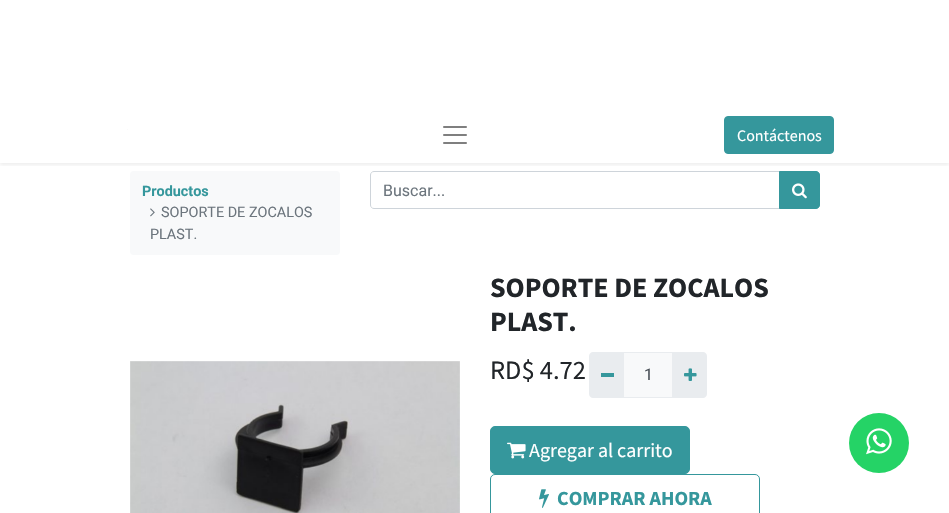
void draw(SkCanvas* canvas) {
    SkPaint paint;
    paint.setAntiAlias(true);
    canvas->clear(0xFFFFFFFF);
    paint.setColor(0xFFF8F9FA);
    canvas->drawRoundRect(SkRect::MakeXYWH(130, 171, 210, 84), 4, 4, paint);
    paint.setStyle(SkPaint::kStroke_Style);
    paint.setStrokeWidth(1);
    paint.setColor(0xFFCED4DA);
    canvas->drawPath(SkPathBuilder().moveTo(374, 171.5f).lineTo(779.5f, 171.5f).lineTo(779.5f, 208.5f).lineTo(374, 208.5f).cubicTo(372, 208.5f, 370.5f, 207, 370.5f, 205).lineTo(370.5f, 175).cubicTo(370.5f, 173, 372, 171.5f, 374, 171.5f).close().detach(), paint);
    paint.setStyle(SkPaint::kFill_Style);
    paint.setColor(0xFF35979C);
    canvas->drawPath(SkPathBuilder().moveTo(779.5f, 171.5f).lineTo(816, 171.5f).cubicTo(818, 171.5f, 819.5f, 173, 819.5f, 175).lineTo(819.5f, 205).cubicTo(819.5f, 207, 818, 208.5f, 816, 208.5f).lineTo(779.5f, 208.5f).close().detach(), paint);
    paint.setStyle(SkPaint::kStroke_Style);
    canvas->drawPath(SkPathBuilder().moveTo(779.5f, 171.5f).lineTo(816, 171.5f).cubicTo(818, 171.5f, 819.5f, 173, 819.5f, 175).lineTo(819.5f, 205).cubicTo(819.5f, 207, 818, 208.5f, 816, 208.5f).lineTo(779.5f, 208.5f).close().detach(), paint);
    canvas->save();
    canvas->clipRect(SkRect::MakeXYWH(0, 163, 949, 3));
    paint.setStyle(SkPaint::kFill_Style);
    paint.setColor(0x12000000);
    paint.setMaskFilter(SkMaskFilter::MakeBlur(kNormal_SkBlurStyle, 2));
    canvas->drawRect(SkRect::MakeXYWH(0, 109, 949, 56), paint);
    paint.setMaskFilter(nullptr);
    canvas->restore();
    paint.setColor(0xFFFAFAFA);
    canvas->drawRect(SkRect::MakeXYWH(127, 129, 1, 1), paint);
    canvas->drawImageRect(SkImages::DeferredFromEncodedData(SkData::MakeFromFileName("img1.png")), SkRect::MakeXYWH(443, 126, 24, 18), SkSamplingOptions());
    paint.setColor(0xFF35979C);
    canvas->drawRoundRect(SkRect::MakeXYWH(724.5f, 116.5f, 109, 37), 3.5f, 3.5f, paint);
    paint.setStyle(SkPaint::kStroke_Style);
    canvas->drawRoundRect(SkRect::MakeXYWH(724.5f, 116.5f, 109, 37), 3.5f, 3.5f, paint);
    SkFont font1(fontMgr->matchFamilyStyle("Source Sans Pro", SkFontStyle::Normal()), 16);
    font1.setSubpixel(true);
    paint.setStyle(SkPaint::kFill_Style);
    paint.setColor(0xFFFFFFFF);
    canvas->drawString("Contáctenos", 737, 141, font1, paint);
    SkFont font2(fontMgr->matchFamilyStyle("Roboto", SkFontStyle::Bold()), 14.4f);
    font2.setSubpixel(true);
    paint.setColor(0xFF35979C);
    canvas->drawString("Productos", 142, 196, font2, paint);
    canvas->drawImageRect(SkImages::DeferredFromEncodedData(SkData::MakeFromFileName("img2.png")), SkRect::MakeXYWH(150, 208, 5, 9), SkSamplingOptions());
    SkFont font3(fontMgr->matchFamilyStyle("Roboto", SkFontStyle::Normal()), 14.4f);
    font3.setSubpixel(true);
    paint.setColor(0xFF6C757D);
    canvas->drawString("SOPORTE DE ZOCALOS", 161, 217, font3, paint);
    canvas->drawString("PLAST.", 150, 239, font3, paint);
    SkFont font4(fontMgr->matchFamilyStyle("Roboto", SkFontStyle::Normal()), 16);
    font4.setSubpixel(true);
    canvas->drawString("Buscar...", 383, 196, font4, paint);
    canvas->drawImageRect(SkImages::DeferredFromEncodedData(SkData::MakeFromFileName("img3.png")), SkRect::MakeXYWH(792, 183, 15, 16), SkSamplingOptions());
    canvas->drawImageRect(SkImages::DeferredFromEncodedData(SkData::MakeFromFileName("img4.png")), SkRect::MakeXYWH(130, 361, 330, 152), SkSamplingOptions());
    SkFont font5(fontMgr->matchFamilyStyle("Source Sans Pro", SkFontStyle::Bold()), 28);
    font5.setSubpixel(true);
    paint.setColor(0xFF212529);
    canvas->drawString("SOPORTE DE ZOCALOS", 490, 297, font5, paint);
    canvas->drawString("PLAST.", 490, 331, font5, paint);
    SkFont font6(fontMgr->matchFamilyStyle("Source Sans Pro", SkFontStyle::Normal()), 26.5f);
    font6.setSubpixel(true);
    canvas->drawString("RD$ 4.72", 490, 379, font6, paint);
    paint.setColor(0xFFF8F9FA);
    canvas->drawRect(SkRect::MakeXYWH(623.5f, 352.5f, 49, 45), paint);
    paint.setStyle(SkPaint::kStroke_Style);
    paint.setColor(0xFFE9ECEF);
    canvas->drawRect(SkRect::MakeXYWH(623.5f, 352.5f, 49, 45), paint);
    paint.setStyle(SkPaint::kFill_Style);
    canvas->drawPath(SkPathBuilder().moveTo(593, 352).lineTo(624, 352).lineTo(624, 398).lineTo(593, 398).cubicTo(591, 398, 589, 396, 589, 394).lineTo(589, 356).cubicTo(589, 354, 591, 352, 593, 352).close().detach(), paint);
    paint.setColor(0xFF35979C);
    canvas->drawRect(SkRect::MakeXYWH(601, 373, 13, 4), paint);
    paint.setColor(0xFF495057);
    canvas->drawString("1", 644, 380, font4, paint);
    paint.setColor(0xFFE9ECEF);
    canvas->drawPath(SkPathBuilder().moveTo(672, 352).lineTo(703, 352).cubicTo(705, 352, 707, 354, 707, 356).lineTo(707, 394).cubicTo(707, 396, 705, 398, 703, 398).lineTo(672, 398).close().detach(), paint);
    canvas->drawImageRect(SkImages::DeferredFromEncodedData(SkData::MakeFromFileName("img5.png")), SkRect::MakeXYWH(684, 368, 13, 13), SkSamplingOptions());
    paint.setColor(0xFF35979C);
    canvas->drawRoundRect(SkRect::MakeXYWH(490.5f, 426.5f, 199, 47), 4.5f, 4.5f, paint);
    paint.setStyle(SkPaint::kStroke_Style);
    canvas->drawRoundRect(SkRect::MakeXYWH(490.5f, 426.5f, 199, 47), 4.5f, 4.5f, paint);
    canvas->drawImageRect(SkImages::DeferredFromEncodedData(SkData::MakeFromFileName("img6.png")), SkRect::MakeXYWH(507, 442, 19, 17), SkSamplingOptions());
    SkFont font7(fontMgr->matchFamilyStyle("Source Sans Pro", SkFontStyle::Normal()), 20);
    font7.setSubpixel(true);
    paint.setStyle(SkPaint::kFill_Style);
    paint.setColor(0xFFFFFFFF);
    canvas->drawString("Agregar al carrito", 529, 457, font7, paint);
    paint.setStyle(SkPaint::kStroke_Style);
    paint.setColor(0xFF35979C);
    canvas->drawRoundRect(SkRect::MakeXYWH(490.5f, 474.5f, 269, 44), 4.5f, 4.5f, paint);
    canvas->drawImageRect(SkImages::DeferredFromEncodedData(SkData::MakeFromFileName("img7.png")), SkRect::MakeXYWH(539, 489, 10, 19), SkSamplingOptions());
    SkFont font8(fontMgr->matchFamilyStyle("Source Sans Pro", SkFontStyle::Bold()), 20);
    font8.setSubpixel(true);
    paint.setStyle(SkPaint::kFill_Style);
    canvas->drawString("COMPRAR AHORA", 557, 505, font8, paint);
    paint.setColor(0xFF25D366);
    canvas->drawCircle(879, 443, 30, paint);
    canvas->drawImageRect(SkImages::DeferredFromEncodedData(SkData::MakeFromFileName("img8.png")), SkRect::MakeXYWH(866, 428, 26, 27), SkSamplingOptions());
}
